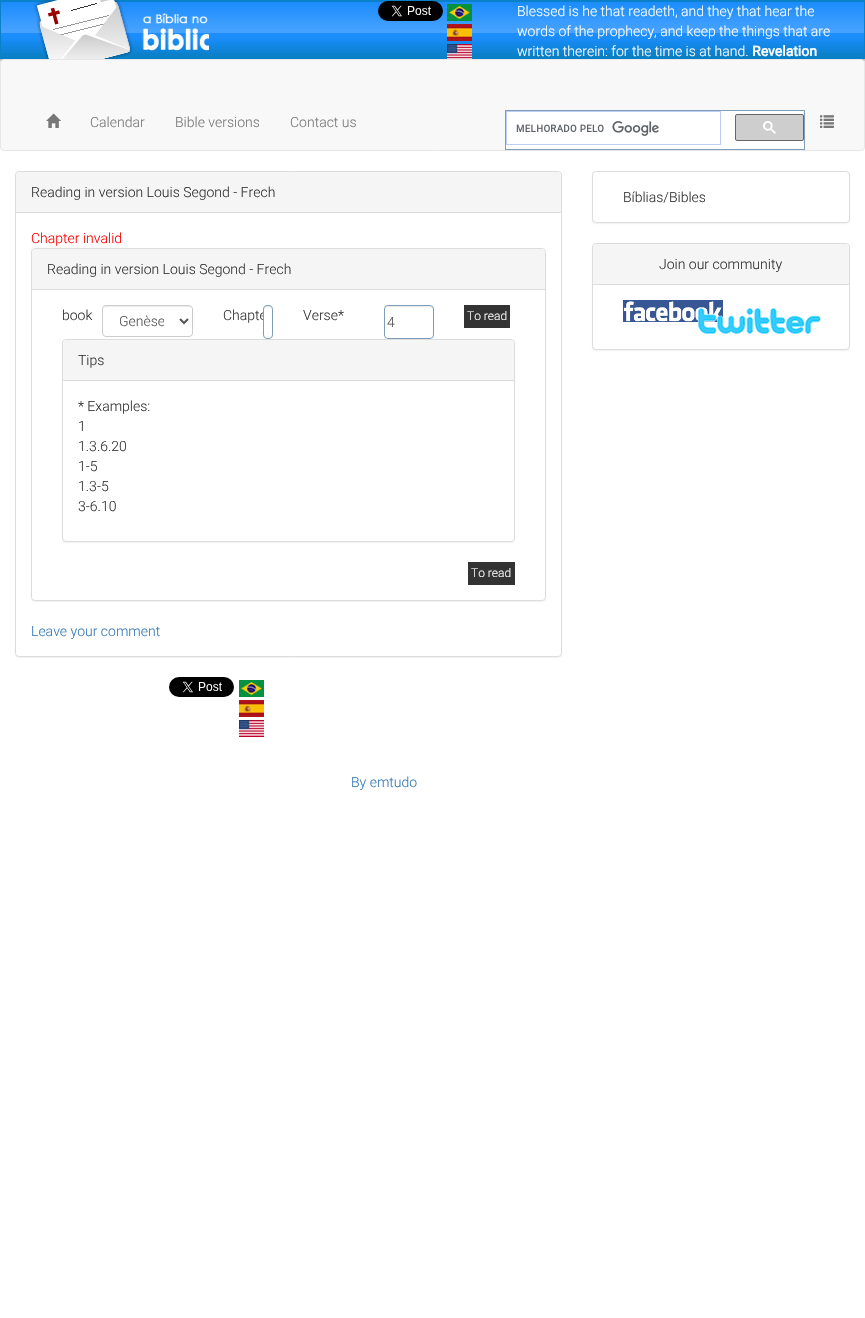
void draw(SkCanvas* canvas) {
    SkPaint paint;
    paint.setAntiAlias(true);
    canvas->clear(0xFFFFFFFF);
    paint.setColor(0xFF999999);
    paint.setMaskFilter(SkMaskFilter::MakeBlur(kNormal_SkBlurStyle, 1.5f));
    canvas->drawRect(SkRect::MakeXYWH(0, 3, 865, 59), paint);
    paint.setMaskFilter(nullptr);
    canvas->drawImageRect(SkImages::DeferredFromEncodedData(SkData::MakeFromFileName("img1.png")), SkRect::MakeXYWH(1, 1, 863, 57), SkSamplingOptions());
    paint.setStyle(SkPaint::kStroke_Style);
    paint.setStrokeWidth(1);
    paint.setColor(0xFF0A80C9);
    canvas->drawRect(SkRect::MakeXYWH(0.5f, 0.5f, 864, 58), paint);
    canvas->drawImageRect(SkImages::DeferredFromEncodedData(SkData::MakeFromFileName("img2.png")), SkRect::MakeXYWH(34, 0, 175, 59), SkSamplingOptions());
    canvas->drawImageRect(SkImages::DeferredFromEncodedData(SkData::MakeFromFileName("img3.png")), SkRect::MakeXYWH(378, 1, 65, 20), SkSamplingOptions());
    canvas->drawImageRect(SkImages::DeferredFromEncodedData(SkData::MakeFromFileName("img4.png")), SkRect::MakeXYWH(447, 4, 25, 17), SkSamplingOptions());
    canvas->drawImageRect(SkImages::DeferredFromEncodedData(SkData::MakeFromFileName("img5.png")), SkRect::MakeXYWH(447, 24, 25, 17), SkSamplingOptions());
    canvas->drawImageRect(SkImages::DeferredFromEncodedData(SkData::MakeFromFileName("img6.png")), SkRect::MakeXYWH(447, 44, 25, 15), SkSamplingOptions());
    SkFont font1(fontMgr->matchFamilyStyle("Roboto", SkFontStyle(300, SkFontStyle::kNormal_Width, SkFontStyle::kUpright_Slant)), 14);
    font1.setSubpixel(true);
    paint.setStyle(SkPaint::kFill_Style);
    paint.setColor(0xFFFFFFFF);
    canvas->drawString("Blessed is he that readeth, and they that hear the", 517, 16, font1, paint);
    canvas->drawString("words of the prophecy, and keep the things that are", 517, 36, font1, paint);
    canvas->drawString("written therein: for the time is at hand.", 517, 56, font1, paint);
    SkFont font2(fontMgr->matchFamilyStyle("Roboto", SkFontStyle::Bold()), 14);
    font2.setSubpixel(true);
    canvas->drawString("Revelation", 752, 56, font2, paint);
    paint.setColor(0xFFF8F8F8);
    canvas->drawRoundRect(SkRect::MakeXYWH(0.5f, 59.5f, 864, 91), 3.5f, 3.5f, paint);
    paint.setStyle(SkPaint::kStroke_Style);
    paint.setColor(0xFFE7E7E7);
    canvas->drawRoundRect(SkRect::MakeXYWH(0.5f, 59.5f, 864, 91), 3.5f, 3.5f, paint);
    canvas->drawImageRect(SkImages::DeferredFromEncodedData(SkData::MakeFromFileName("img7.png")), SkRect::MakeXYWH(46, 113, 15, 15), SkSamplingOptions());
    paint.setStyle(SkPaint::kFill_Style);
    paint.setColor(0xFF777777);
    canvas->drawString("Calendar", 90, 127, font1, paint);
    canvas->drawString("Bible versions", 175, 127, font1, paint);
    canvas->drawString("Contact us", 290, 127, font1, paint);
    paint.setColor(0xFFFFFFFF);
    canvas->drawRect(SkRect::MakeXYWH(505.5f, 110.5f, 299, 39), paint);
    paint.setStyle(SkPaint::kStroke_Style);
    paint.setColor(0xFF7E9DB9);
    canvas->drawRect(SkRect::MakeXYWH(505.5f, 110.5f, 299, 39), paint);
    paint.setColor(0xFFBCCDF0);
    canvas->drawRect(SkRect::MakeXYWH(506.5f, 111.5f, 214, 33), paint);
    canvas->drawImageRect(SkImages::DeferredFromEncodedData(SkData::MakeFromFileName("img8.png")), SkRect::MakeXYWH(516, 121, 143, 15), SkSamplingOptions());
    paint.setStyle(SkPaint::kFill_Style);
    paint.setColor(0xFFCECECE);
    canvas->drawRoundRect(SkRect::MakeXYWH(735.5f, 114.5f, 68, 26), 1.5f, 1.5f, paint);
    paint.setStyle(SkPaint::kStroke_Style);
    paint.setColor(0xFF666666);
    canvas->drawRoundRect(SkRect::MakeXYWH(735.5f, 114.5f, 68, 26), 1.5f, 1.5f, paint);
    canvas->drawImageRect(SkImages::DeferredFromEncodedData(SkData::MakeFromFileName("img9.png")), SkRect::MakeXYWH(763, 121, 13, 13), SkSamplingOptions());
    canvas->drawImageRect(SkImages::DeferredFromEncodedData(SkData::MakeFromFileName("img10.png")), SkRect::MakeXYWH(820, 115, 14, 13), SkSamplingOptions());
    paint.setStyle(SkPaint::kFill_Style);
    paint.setColor(0x0D000000);
    paint.setMaskFilter(SkMaskFilter::MakeBlur(kNormal_SkBlurStyle, 0.5f));
    canvas->drawRoundRect(SkRect::MakeXYWH(15, 172, 547, 486), 4, 4, paint);
    paint.setMaskFilter(nullptr);
    paint.setColor(0xFFFFFFFF);
    canvas->drawRoundRect(SkRect::MakeXYWH(15.5f, 171.5f, 546, 485), 3.5f, 3.5f, paint);
    paint.setStyle(SkPaint::kStroke_Style);
    paint.setColor(0xFFDDDDDD);
    canvas->drawRoundRect(SkRect::MakeXYWH(15.5f, 171.5f, 546, 485), 3.5f, 3.5f, paint);
    paint.setStyle(SkPaint::kFill_Style);
    paint.setColor(0xFFF5F5F5);
    canvas->drawPath(SkPathBuilder().moveTo(19, 172).lineTo(558, 172).cubicTo(559.5f, 172, 561, 173.5f, 561, 175).lineTo(561, 213).lineTo(16, 213).lineTo(16, 175).cubicTo(16, 173.5f, 17.5f, 172, 19, 172).close().detach(), paint);
    paint.setColor(0xFFDDDDDD);
    canvas->drawRect(SkRect::MakeXYWH(16, 212, 545, 1), paint);
    paint.setColor(0xFF333333);
    canvas->drawString("Reading in version Louis Segond - Frech", 31, 197, font1, paint);
    paint.setColor(0xFFFF0000);
    canvas->drawString("Chapter invalid", 31, 243, font1, paint);
    paint.setColor(0x0D000000);
    paint.setMaskFilter(SkMaskFilter::MakeBlur(kNormal_SkBlurStyle, 0.5f));
    canvas->drawRoundRect(SkRect::MakeXYWH(31, 249, 515, 353), 4, 4, paint);
    paint.setMaskFilter(nullptr);
    paint.setColor(0xFFFFFFFF);
    canvas->drawRoundRect(SkRect::MakeXYWH(31.5f, 248.5f, 514, 352), 3.5f, 3.5f, paint);
    paint.setStyle(SkPaint::kStroke_Style);
    paint.setColor(0xFFDDDDDD);
    canvas->drawRoundRect(SkRect::MakeXYWH(31.5f, 248.5f, 514, 352), 3.5f, 3.5f, paint);
    paint.setStyle(SkPaint::kFill_Style);
    paint.setColor(0xFFF5F5F5);
    canvas->drawPath(SkPathBuilder().moveTo(35, 249).lineTo(542, 249).cubicTo(543.5f, 249, 545, 250.5f, 545, 252).lineTo(545, 290).lineTo(32, 290).lineTo(32, 252).cubicTo(32, 250.5f, 33.5f, 249, 35, 249).close().detach(), paint);
    paint.setColor(0xFFDDDDDD);
    canvas->drawRect(SkRect::MakeXYWH(32, 289, 513, 1), paint);
    paint.setColor(0xFF333333);
    canvas->drawString("Reading in version Louis Segond - Frech", 47, 274, font1, paint);
    canvas->drawString("book", 62, 320, font1, paint);
    paint.setColor(0xFFECECEC);
    canvas->drawPath(SkPathBuilder().moveTo(106, 307).lineTo(189, 307).cubicTo(191, 307, 192, 308, 192, 310).cubicTo(192, 302, 179, 306, 175, 306).lineTo(120, 306).cubicTo(116, 306, 103, 302, 103, 310).cubicTo(103, 308, 104, 307, 106, 307).close().detach(), paint);
    paint.setStyle(SkPaint::kStroke_Style);
    paint.setColor(0xFFCCCCCC);
    canvas->drawRoundRect(SkRect::MakeXYWH(102.5f, 305.5f, 90, 31), 3.5f, 3.5f, paint);
    paint.setStrokeWidth(2);
    paint.setColor(0xFF555555);
    canvas->drawPath(SkPathBuilder().moveTo(180, 319).lineTo(184, 323).lineTo(188, 319).detach(), paint);
    canvas->save();
    canvas->clipRect(SkRect::MakeXYWH(119, 312, 45, 18));
    paint.setStyle(SkPaint::kFill_Style);
    canvas->drawString("Genèse", 119, 326, font1, paint);
    canvas->restore();
    paint.setColor(0xFF333333);
    canvas->drawString("Chapte", 223, 320, font1, paint);
    paint.setColor(0xFFFFFFFF);
    canvas->drawRoundRect(SkRect::MakeXYWH(263, 305, 10, 34), 4, 4, paint);
    paint.setColor(0xFFECECEC);
    canvas->drawPath(SkPathBuilder().moveTo(267, 307).cubicTo(269.5f, 307, 272, 307, 272, 310).cubicTo(272, 307, 271, 306, 268, 306).cubicTo(265, 306, 264, 307, 264, 310).cubicTo(264, 308, 265, 307, 267, 307).close().detach(), paint);
    paint.setStyle(SkPaint::kStroke_Style);
    paint.setStrokeWidth(1);
    paint.setColor(0xFF7E9DB9);
    canvas->drawRoundRect(SkRect::MakeXYWH(263.5f, 305.5f, 9, 33), 3.5f, 3.5f, paint);
    paint.setStyle(SkPaint::kFill_Style);
    paint.setColor(0xFF333333);
    canvas->drawString("Verse*", 303, 320, font1, paint);
    paint.setColor(0xFFECECEC);
    canvas->drawPath(SkPathBuilder().moveTo(388, 307).lineTo(430, 307).cubicTo(432, 307, 433, 308, 433, 310).cubicTo(433, 304, 427, 306, 423, 306).lineTo(395, 306).cubicTo(391, 306, 385, 304, 385, 310).cubicTo(385, 308, 386, 307, 388, 307).close().detach(), paint);
    paint.setStyle(SkPaint::kStroke_Style);
    paint.setColor(0xFF7E9DB9);
    canvas->drawRoundRect(SkRect::MakeXYWH(384.5f, 305.5f, 49, 33), 3.5f, 3.5f, paint);
    paint.setStyle(SkPaint::kFill_Style);
    paint.setColor(0xFF555555);
    canvas->drawString("4", 387, 327, font1, paint);
    paint.setColor(0xFF333333);
    canvas->drawRect(SkRect::MakeXYWH(464, 305, 46, 23), paint);
    SkFont font3(fontMgr->matchFamilyStyle("Roboto", SkFontStyle(300, SkFontStyle::kNormal_Width, SkFontStyle::kUpright_Slant)), 12);
    font3.setSubpixel(true);
    paint.setColor(0xFFFFFFFF);
    canvas->drawString("To read", 467, 320, font3, paint);
    paint.setColor(0x0D000000);
    paint.setMaskFilter(SkMaskFilter::MakeBlur(kNormal_SkBlurStyle, 0.5f));
    canvas->drawRoundRect(SkRect::MakeXYWH(62, 340, 453, 203), 4, 4, paint);
    paint.setMaskFilter(nullptr);
    paint.setColor(0xFFFFFFFF);
    canvas->drawRoundRect(SkRect::MakeXYWH(62.5f, 339.5f, 452, 202), 3.5f, 3.5f, paint);
    paint.setStyle(SkPaint::kStroke_Style);
    paint.setColor(0xFFDDDDDD);
    canvas->drawRoundRect(SkRect::MakeXYWH(62.5f, 339.5f, 452, 202), 3.5f, 3.5f, paint);
    paint.setStyle(SkPaint::kFill_Style);
    paint.setColor(0xFFF5F5F5);
    canvas->drawPath(SkPathBuilder().moveTo(66, 340).lineTo(511, 340).cubicTo(512.5f, 340, 514, 341.5f, 514, 343).lineTo(514, 381).lineTo(63, 381).lineTo(63, 343).cubicTo(63, 341.5f, 64.5f, 340, 66, 340).close().detach(), paint);
    paint.setColor(0xFFDDDDDD);
    canvas->drawRect(SkRect::MakeXYWH(63, 380, 451, 1), paint);
    paint.setColor(0xFF333333);
    canvas->drawString("Tips", 78, 365, font1, paint);
    canvas->drawString("* Examples:", 78, 411, font1, paint);
    canvas->drawString("1", 78, 431, font1, paint);
    canvas->drawString("1.3.6.20", 78, 451, font1, paint);
    canvas->drawString("1-5", 78, 471, font1, paint);
    canvas->drawString("1.3-5", 78, 491, font1, paint);
    canvas->drawString("3-6.10", 78, 511, font1, paint);
    canvas->drawRect(SkRect::MakeXYWH(468, 562, 47, 23), paint);
    paint.setColor(0xFFFFFFFF);
    canvas->drawString("To read", 471, 577, font3, paint);
    paint.setColor(0xFF337AB7);
    canvas->drawString("Leave your comment", 31, 636, font1, paint);
    paint.setColor(0x0D000000);
    paint.setMaskFilter(SkMaskFilter::MakeBlur(kNormal_SkBlurStyle, 0.5f));
    canvas->drawRoundRect(SkRect::MakeXYWH(592, 172, 258, 52), 4, 4, paint);
    paint.setMaskFilter(nullptr);
    paint.setColor(0xFFFFFFFF);
    canvas->drawRoundRect(SkRect::MakeXYWH(592.5f, 171.5f, 257, 51), 3.5f, 3.5f, paint);
    paint.setStyle(SkPaint::kStroke_Style);
    paint.setColor(0xFFDDDDDD);
    canvas->drawRoundRect(SkRect::MakeXYWH(592.5f, 171.5f, 257, 51), 3.5f, 3.5f, paint);
    paint.setStyle(SkPaint::kFill_Style);
    paint.setColor(0xFF333333);
    canvas->drawString("Bíblias/Bibles", 623, 202, font1, paint);
    paint.setColor(0x0D000000);
    paint.setMaskFilter(SkMaskFilter::MakeBlur(kNormal_SkBlurStyle, 0.5f));
    canvas->drawRoundRect(SkRect::MakeXYWH(592, 244, 258, 107), 4, 4, paint);
    paint.setMaskFilter(nullptr);
    paint.setColor(0xFFFFFFFF);
    canvas->drawRoundRect(SkRect::MakeXYWH(592.5f, 243.5f, 257, 106), 3.5f, 3.5f, paint);
    paint.setStyle(SkPaint::kStroke_Style);
    paint.setColor(0xFFDDDDDD);
    canvas->drawRoundRect(SkRect::MakeXYWH(592.5f, 243.5f, 257, 106), 3.5f, 3.5f, paint);
    paint.setStyle(SkPaint::kFill_Style);
    paint.setColor(0xFFF5F5F5);
    canvas->drawPath(SkPathBuilder().moveTo(596, 244).lineTo(846, 244).cubicTo(847.5f, 244, 849, 245.5f, 849, 247).lineTo(849, 285).lineTo(593, 285).lineTo(593, 247).cubicTo(593, 245.5f, 594.5f, 244, 596, 244).close().detach(), paint);
    paint.setColor(0xFFDDDDDD);
    canvas->drawRect(SkRect::MakeXYWH(593, 284, 256, 1), paint);
    paint.setColor(0xFF333333);
    canvas->drawString("Join our community", 659, 269, font1, paint);
    canvas->drawImageRect(SkImages::DeferredFromEncodedData(SkData::MakeFromFileName("img11.png")), SkRect::MakeXYWH(623, 300, 100, 22), SkSamplingOptions());
    canvas->drawImageRect(SkImages::DeferredFromEncodedData(SkData::MakeFromFileName("img12.png")), SkRect::MakeXYWH(698, 308, 123, 26), SkSamplingOptions());
    canvas->drawImageRect(SkImages::DeferredFromEncodedData(SkData::MakeFromFileName("img13.png")), SkRect::MakeXYWH(169, 677, 65, 20), SkSamplingOptions());
    canvas->drawImageRect(SkImages::DeferredFromEncodedData(SkData::MakeFromFileName("img4.png")), SkRect::MakeXYWH(239, 680, 25, 17), SkSamplingOptions());
    canvas->drawImageRect(SkImages::DeferredFromEncodedData(SkData::MakeFromFileName("img5.png")), SkRect::MakeXYWH(239, 700, 25, 17), SkSamplingOptions());
    canvas->drawImageRect(SkImages::DeferredFromEncodedData(SkData::MakeFromFileName("img14.png")), SkRect::MakeXYWH(239, 720, 25, 17), SkSamplingOptions());
    paint.setColor(0xFF337AB7);
    canvas->drawString("By emtudo", 351, 787, font1, paint);
}
